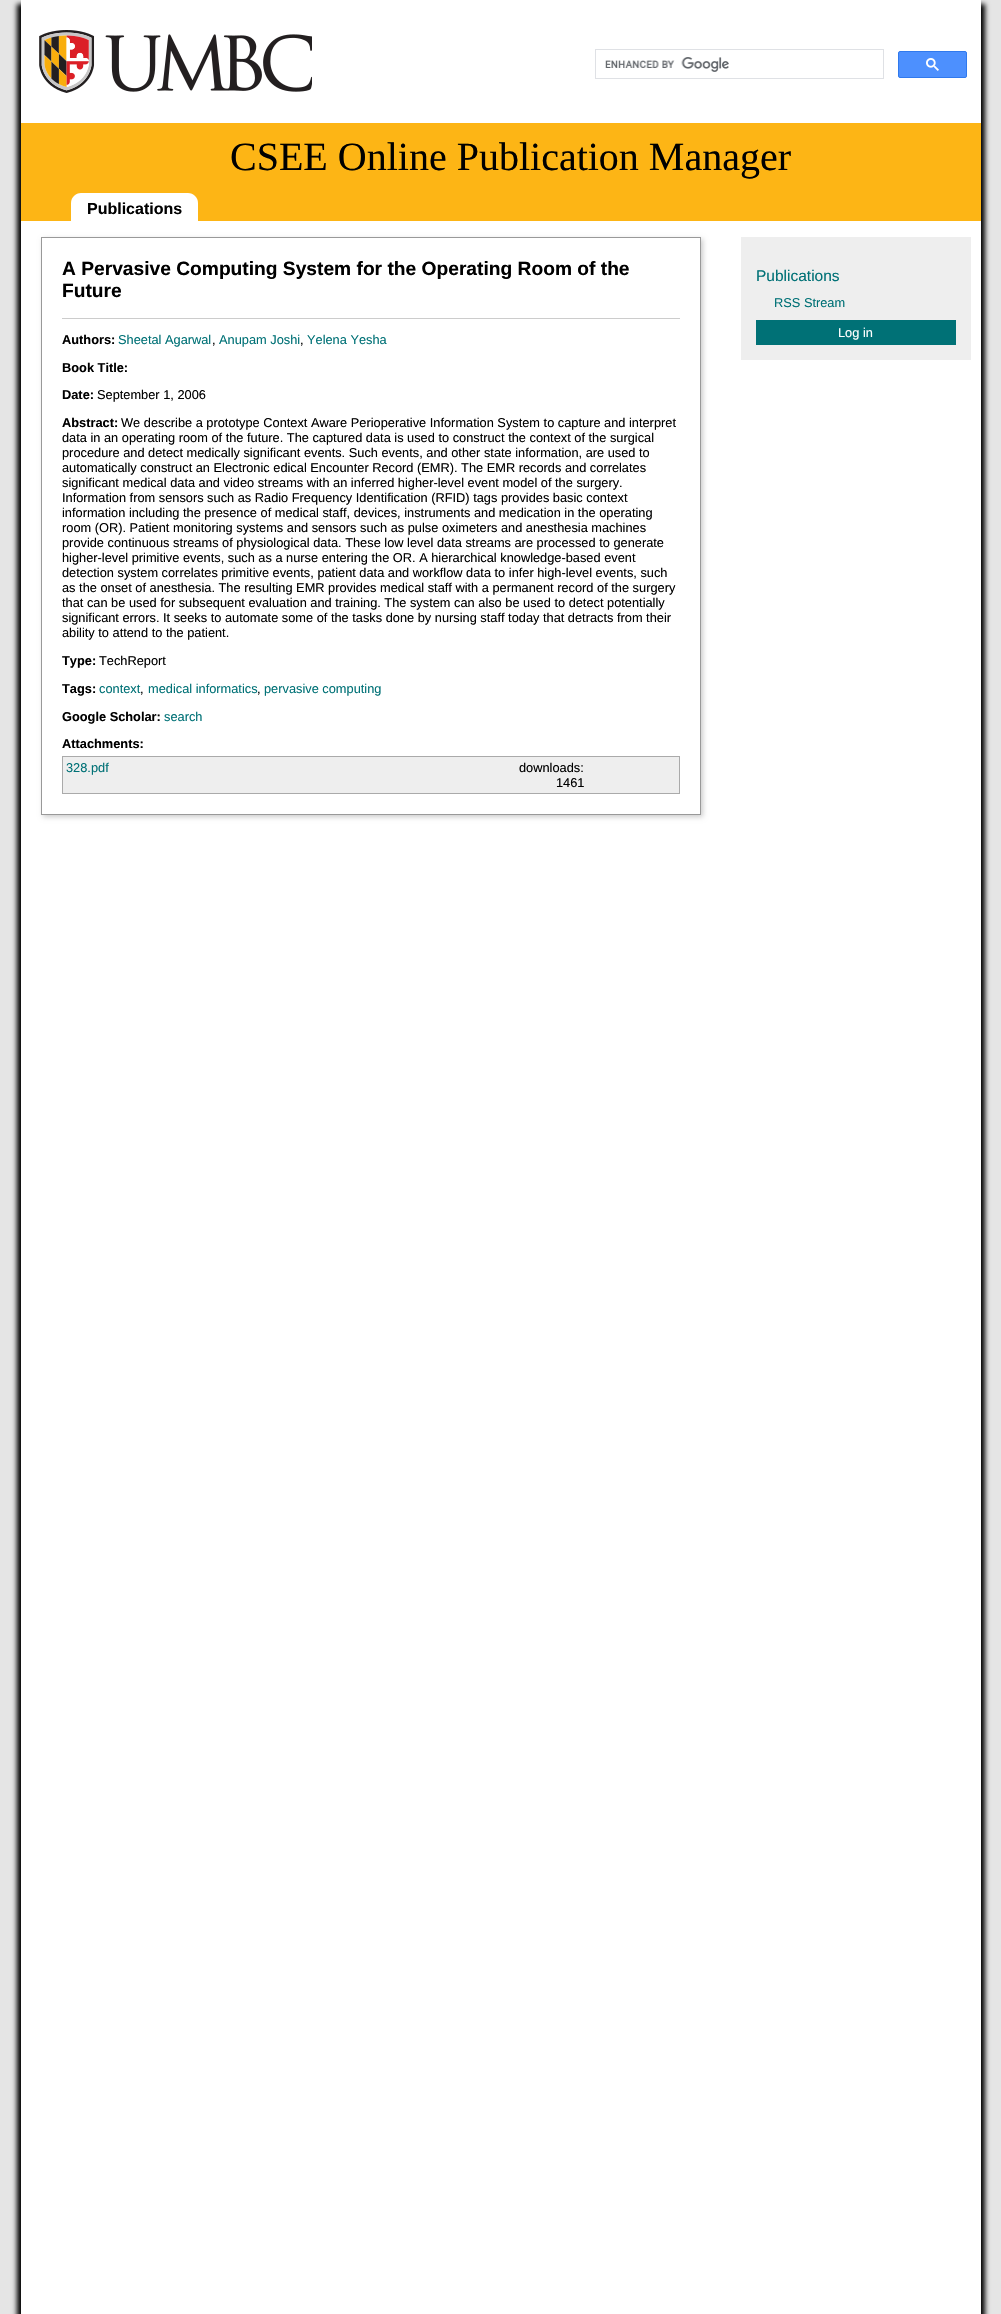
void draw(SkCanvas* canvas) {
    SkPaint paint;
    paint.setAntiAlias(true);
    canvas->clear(0xFFE5E5E5);
    paint.setColor(0xFF000000);
    paint.setMaskFilter(SkMaskFilter::MakeBlur(kNormal_SkBlurStyle, 2.5f));
    canvas->drawRect(SkRect::MakeXYWH(25, 4, 960, 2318), paint);
    paint.setMaskFilter(nullptr);
    paint.setMaskFilter(SkMaskFilter::MakeBlur(kNormal_SkBlurStyle, 2.5f));
    canvas->drawRect(SkRect::MakeXYWH(17, 4, 960, 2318), paint);
    paint.setMaskFilter(nullptr);
    paint.setColor(0xFFFFFFFF);
    canvas->drawRect(SkRect::MakeXYWH(21, 0, 960, 2314), paint);
    canvas->drawImageRect(SkImages::DeferredFromEncodedData(SkData::MakeFromFileName("img1.png")), SkRect::MakeXYWH(39, 30, 273, 63), SkSamplingOptions());
    paint.setStyle(SkPaint::kStroke_Style);
    paint.setStrokeWidth(1);
    paint.setColor(0xFFDFE1E5);
    canvas->drawRect(SkRect::MakeXYWH(595.5f, 49.5f, 288, 29), paint);
    canvas->drawImageRect(SkImages::DeferredFromEncodedData(SkData::MakeFromFileName("img2.png")), SkRect::MakeXYWH(605, 57, 124, 15), SkSamplingOptions());
    paint.setStyle(SkPaint::kFill_Style);
    paint.setColor(0xFF4D90FE);
    canvas->drawRoundRect(SkRect::MakeXYWH(898.5f, 51.5f, 68, 26), 1.5f, 1.5f, paint);
    paint.setStyle(SkPaint::kStroke_Style);
    paint.setColor(0xFF3079ED);
    canvas->drawRoundRect(SkRect::MakeXYWH(898.5f, 51.5f, 68, 26), 1.5f, 1.5f, paint);
    canvas->drawImageRect(SkImages::DeferredFromEncodedData(SkData::MakeFromFileName("img3.png")), SkRect::MakeXYWH(926, 58, 13, 13), SkSamplingOptions());
    paint.setStyle(SkPaint::kFill_Style);
    paint.setColor(0xFFFDB515);
    canvas->drawRect(SkRect::MakeXYWH(21, 123, 960, 98), paint);
    SkFont font1(fontMgr->matchFamilyStyle("Liberation Serif", SkFontStyle::Normal()), 40);
    font1.setSubpixel(true);
    paint.setColor(0xFF000000);
    canvas->drawString("CSEE Online Publication Manager", 230, 170, font1, paint);
    paint.setColor(0xFFFFFFFF);
    canvas->drawPath(SkPathBuilder().moveTo(81, 193).lineTo(188, 193).cubicTo(193.5f, 193, 198, 197.5f, 198, 203).lineTo(198, 221).lineTo(71, 221).lineTo(71, 203).cubicTo(71, 197.5f, 75.5f, 193, 81, 193).close().detach(), paint);
    SkFont font2(fontMgr->matchFamilyStyle("Liberation Sans", SkFontStyle::Bold()), 16);
    font2.setSubpixel(true);
    paint.setColor(0xFF000000);
    canvas->drawString("Publications", 87, 214, font2, paint);
    canvas->save();
    canvas->clipPath(SkPathBuilder(SkPathFillType::kEvenOdd).moveTo(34, 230).lineTo(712, 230).lineTo(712, 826).lineTo(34, 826).close().moveTo(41, 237).lineTo(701, 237).lineTo(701, 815).lineTo(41, 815).close().detach(), true);
    paint.setColor(0xFFCCCCCC);
    paint.setMaskFilter(SkMaskFilter::MakeBlur(kNormal_SkBlurStyle, 2.5f));
    canvas->drawRect(SkRect::MakeXYWH(43, 239, 660, 578), paint);
    paint.setMaskFilter(nullptr);
    canvas->restore();
    paint.setStyle(SkPaint::kStroke_Style);
    paint.setColor(0xFF999999);
    canvas->drawRect(SkRect::MakeXYWH(41.5f, 237.5f, 659, 577), paint);
    paint.setStyle(SkPaint::kFill_Style);
    paint.setColor(0xFFCCCCCC);
    canvas->drawRect(SkRect::MakeXYWH(62, 318, 618, 1), paint);
    SkFont font3(fontMgr->matchFamilyStyle("Liberation Sans", SkFontStyle::Bold()), 19.2f);
    font3.setSubpixel(true);
    paint.setColor(0xFF000000);
    canvas->drawString("A Pervasive Computing System for the Operating Room of the", 62, 275, font3, paint);
    canvas->drawString("Future", 62, 297, font3, paint);
    SkFont font4(fontMgr->matchFamilyStyle("Liberation Sans", SkFontStyle::Bold()), 12.8f);
    font4.setSubpixel(true);
    canvas->drawString("Authors:", 62, 344, font4, paint);
    SkFont font5(fontMgr->matchFamilyStyle("Liberation Sans", SkFontStyle::Normal()), 12.8f);
    font5.setSubpixel(true);
    paint.setColor(0xFF007176);
    canvas->drawString("Sheetal Agarwal", 118, 344, font5, paint);
    paint.setColor(0xFF000000);
    canvas->drawString(",", 212, 344, font5, paint);
    paint.setColor(0xFF007176);
    canvas->drawString("Anupam Joshi", 219, 344, font5, paint);
    paint.setColor(0xFF000000);
    canvas->drawString(",", 300, 344, font5, paint);
    paint.setColor(0xFF007176);
    canvas->drawString("Yelena Yesha", 307, 344, font5, paint);
    paint.setColor(0xFF000000);
    canvas->drawString("Book Title:", 62, 372, font4, paint);
    canvas->drawString("Date:", 62, 399, font4, paint);
    canvas->drawString("September 1, 2006", 97, 399, font5, paint);
    canvas->drawString("Abstract:", 62, 427, font4, paint);
    canvas->drawString("We describe a prototype Context Aware Perioperative Information System to capture and interpret", 121, 427, font5, paint);
    canvas->drawString("data in an operating room of the future. The captured data is used to construct the context of the surgical", 62, 442, font5, paint);
    canvas->drawString("procedure and detect medically significant events. Such events, and other state information, are used to", 62, 457, font5, paint);
    canvas->drawString("automatically construct an Electronic edical Encounter Record (EMR). The EMR records and correlates", 62, 472, font5, paint);
    canvas->drawString("significant medical data and video streams with an inferred higher-level event model of the surgery.", 62, 487, font5, paint);
    canvas->drawString("Information from sensors such as Radio Frequency Identification (RFID) tags provides basic context", 62, 502, font5, paint);
    canvas->drawString("information including the presence of medical staff, devices, instruments and medication in the operating", 62, 517, font5, paint);
    canvas->drawString("room (OR). Patient monitoring systems and sensors such as pulse oximeters and anesthesia machines", 62, 532, font5, paint);
    canvas->drawString("provide continuous streams of physiological data. These low level data streams are processed to generate", 62, 547, font5, paint);
    canvas->drawString("higher-level primitive events, such as a nurse entering the OR. A hierarchical knowledge-based event", 62, 562, font5, paint);
    canvas->drawString("detection system correlates primitive events, patient data and workflow data to infer high-level events, such", 62, 577, font5, paint);
    canvas->drawString("as the onset of anesthesia. The resulting EMR provides medical staff with a permanent record of the surgery", 62, 592, font5, paint);
    canvas->drawString("that can be used for subsequent evaluation and training. The system can also be used to detect potentially", 62, 607, font5, paint);
    canvas->drawString("significant errors. It seeks to automate some of the tasks done by nursing staff today that detracts from their", 62, 622, font5, paint);
    canvas->drawString("ability to attend to the patient.", 62, 637, font5, paint);
    canvas->drawString("Type:", 62, 665, font4, paint);
    canvas->drawString("TechReport", 99, 665, font5, paint);
    canvas->drawString("Tags:", 62, 693, font4, paint);
    paint.setColor(0xFF007176);
    canvas->drawString("context", 99, 693, font5, paint);
    paint.setColor(0xFF000000);
    canvas->drawString(",", 140, 693, font5, paint);
    paint.setColor(0xFF007176);
    canvas->drawString("medical informatics", 148, 693, font5, paint);
    paint.setColor(0xFF000000);
    canvas->drawString(",", 257, 693, font5, paint);
    paint.setColor(0xFF007176);
    canvas->drawString("pervasive computing", 264, 693, font5, paint);
    paint.setColor(0xFF000000);
    canvas->drawString("Google Scholar:", 62, 721, font4, paint);
    paint.setColor(0xFF007176);
    canvas->drawString("search", 164, 721, font5, paint);
    paint.setColor(0xFF000000);
    canvas->drawString("Attachments:", 62, 748, font4, paint);
    paint.setColor(0xFFAAAAAA);
    canvas->drawRect(SkRect::MakeXYWH(62, 756, 618, 1), paint);
    canvas->drawRect(SkRect::MakeXYWH(679, 756, 1, 38), paint);
    canvas->drawRect(SkRect::MakeXYWH(62, 793, 618, 1), paint);
    canvas->drawRect(SkRect::MakeXYWH(62, 756, 1, 38), paint);
    paint.setColor(0xFFEEEEEE);
    canvas->drawRect(SkRect::MakeXYWH(63, 757, 616, 36), paint);
    paint.setColor(0xFF007176);
    canvas->drawString("328.pdf", 66, 772, font5, paint);
    paint.setColor(0xFF000000);
    canvas->drawString("downloads:", 519, 772, font5, paint);
    canvas->drawString("1461", 556, 787, font5, paint);
    paint.setColor(0xFFEEEEEE);
    canvas->drawRect(SkRect::MakeXYWH(741, 237, 230, 123), paint);
    SkFont font6(fontMgr->matchFamilyStyle("Liberation Sans", SkFontStyle::Normal()), 15.5f);
    font6.setSubpixel(true);
    paint.setColor(0xFF007176);
    canvas->drawString("Publications", 756, 281, font6, paint);
    canvas->drawString("RSS Stream", 774, 307, font5, paint);
    canvas->drawRect(SkRect::MakeXYWH(756, 320, 200, 25), paint);
    paint.setColor(0xFFFFFFFF);
    canvas->drawString("Log in", 838, 337, font5, paint);
}
